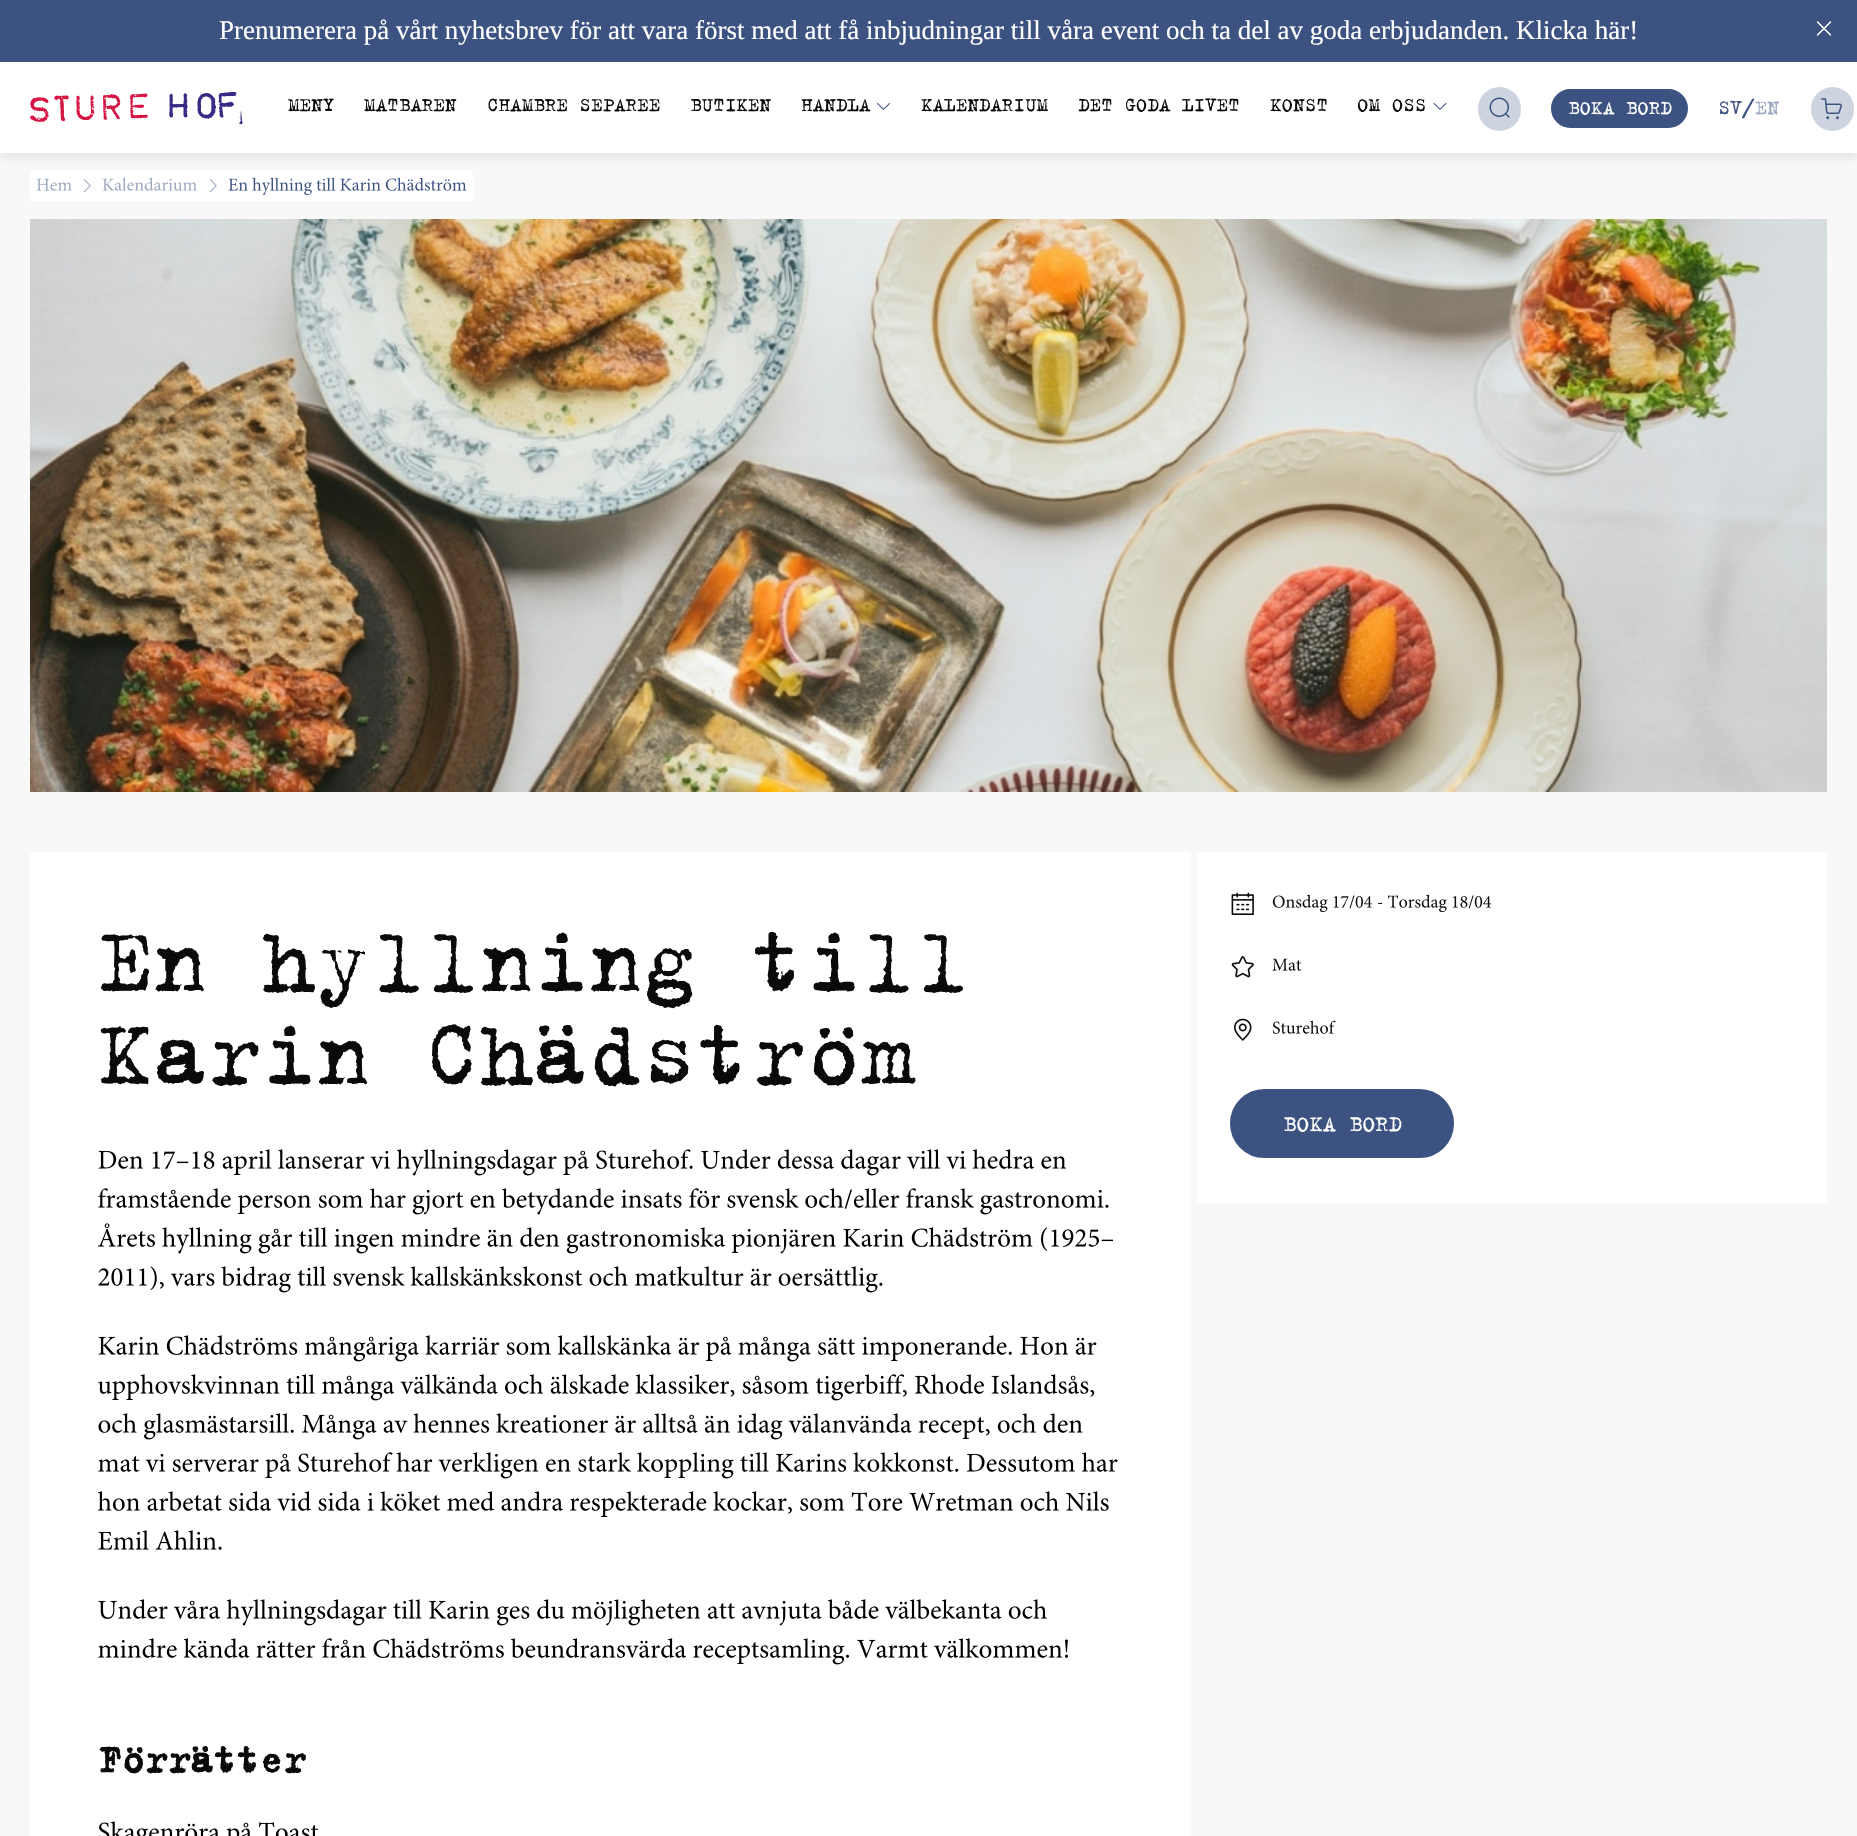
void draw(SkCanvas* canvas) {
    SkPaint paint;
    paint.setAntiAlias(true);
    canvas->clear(0xFFF8F8F8);
    paint.setColor(0x0F000000);
    paint.setMaskFilter(SkMaskFilter::MakeBlur(kNormal_SkBlurStyle, 3));
    canvas->drawRect(SkRect::MakeXYWH(0, 6, 1857, 153), paint);
    paint.setMaskFilter(nullptr);
    paint.setColor(0xFFFFFFFF);
    canvas->drawRect(SkRect::MakeXYWH(0, 62, 1857, 91), paint);
    paint.setColor(0xFF3C5381);
    canvas->drawRect(SkRect::MakeXYWH(0, 0, 1857, 62), paint);
    SkFont font1(fontMgr->matchFamilyStyle("Liberation Serif", SkFontStyle::Normal()), 27);
    font1.setSubpixel(true);
    paint.setColor(0xFFFFFFFF);
    canvas->drawString("Prenumerera på vårt nyhetsbrev för att vara först med att få inbjudningar till våra event och ta del av goda erbjudanden. Klicka här!", 219, 39, font1, paint);
    canvas->drawImageRect(SkImages::DeferredFromEncodedData(SkData::MakeFromFileName("img1.png")), SkRect::MakeXYWH(1816, 21, 16, 15), SkSamplingOptions());
    canvas->drawImageRect(SkImages::DeferredFromEncodedData(SkData::MakeFromFileName("img2.png")), SkRect::MakeXYWH(30, 92, 213, 33), SkSamplingOptions());
    SkFont font2(fontMgr->matchFamilyStyle("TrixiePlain", SkFontStyle(500, SkFontStyle::kNormal_Width, SkFontStyle::kUpright_Slant)), 21);
    font2.setSubpixel(true);
    paint.setColor(0xFF0A0A0A);
    canvas->drawString("MENY", 288, 111, font2, paint);
    canvas->drawString("MATBAREN", 364, 111, font2, paint);
    canvas->drawString("CHAMBRE SÉPARÉE", 487, 111, font2, paint);
    canvas->drawString("BUTIKEN", 690, 111, font2, paint);
    canvas->drawString("HANDLA", 801, 111, font2, paint);
    canvas->drawImageRect(SkImages::DeferredFromEncodedData(SkData::MakeFromFileName("img3.png")), SkRect::MakeXYWH(877, 103, 13, 7), SkSamplingOptions());
    canvas->drawString("KALENDARIUM", 921, 111, font2, paint);
    canvas->drawString("DET GODA LIVET", 1078, 111, font2, paint);
    canvas->drawString("KONST", 1270, 111, font2, paint);
    canvas->drawString("OM OSS", 1357, 111, font2, paint);
    canvas->drawImageRect(SkImages::DeferredFromEncodedData(SkData::MakeFromFileName("img4.png")), SkRect::MakeXYWH(1433, 103, 14, 7), SkSamplingOptions());
    paint.setColor(0xFFCED4DF);
    canvas->drawRoundRect(SkRect::MakeXYWH(1478, 87, 43, 44), 21.5f, 21.5f, paint);
    canvas->drawImageRect(SkImages::DeferredFromEncodedData(SkData::MakeFromFileName("img5.png")), SkRect::MakeXYWH(1489, 97, 21, 21), SkSamplingOptions());
    paint.setColor(0xFF3C5381);
    canvas->drawRoundRect(SkRect::MakeXYWH(1552, 90, 135, 37), 18.5f, 18.5f, paint);
    paint.setStyle(SkPaint::kStroke_Style);
    paint.setStrokeWidth(2);
    canvas->drawRoundRect(SkRect::MakeXYWH(1552, 90, 135, 37), 18.5f, 18.5f, paint);
    paint.setStyle(SkPaint::kFill_Style);
    paint.setColor(0xFFFFFFFF);
    canvas->drawString("BOKA BORD", 1568, 114, font2, paint);
    SkFont font3(fontMgr->matchFamilyStyle("TrixiePlain", SkFontStyle(500, SkFontStyle::kNormal_Width, SkFontStyle::kUpright_Slant)), 22);
    font3.setSubpixel(true);
    paint.setColor(0xFF3C5381);
    canvas->drawString("SV/", 1718, 114, font3, paint);
    paint.setColor(0xFF9DA9C0);
    canvas->drawString("EN", 1755, 114, font3, paint);
    paint.setColor(0xFFCED4DF);
    canvas->drawRoundRect(SkRect::MakeXYWH(1811, 87, 43, 44), 21.5f, 21.5f, paint);
    canvas->drawImageRect(SkImages::DeferredFromEncodedData(SkData::MakeFromFileName("img6.png")), SkRect::MakeXYWH(1821, 98, 21, 22), SkSamplingOptions());
    paint.setColor(0xFFFFFFFF);
    canvas->drawPath(SkPathBuilder().moveTo(33, 171).lineTo(78, 171).lineTo(78, 201).lineTo(33, 201).cubicTo(31.5f, 201, 30, 199.5f, 30, 198).lineTo(30, 174).cubicTo(30, 172.5f, 31.5f, 171, 33, 171).close().detach(), paint);
    canvas->drawImageRect(SkImages::DeferredFromEncodedData(SkData::MakeFromFileName("img7.png")), SkRect::MakeXYWH(36, 178, 36, 13), SkSamplingOptions());
    canvas->drawRect(SkRect::MakeXYWH(78, 171, 144, 30), paint);
    canvas->drawImageRect(SkImages::DeferredFromEncodedData(SkData::MakeFromFileName("img8.png")), SkRect::MakeXYWH(83, 179, 8, 14), SkSamplingOptions());
    canvas->drawPath(SkPathBuilder().moveTo(222, 171).lineTo(470, 171).cubicTo(471.5f, 171, 473, 172.5f, 473, 174).lineTo(473, 198).cubicTo(473, 199.5f, 471.5f, 201, 470, 201).lineTo(222, 201).close().detach(), paint);
    canvas->drawImageRect(SkImages::DeferredFromEncodedData(SkData::MakeFromFileName("img9.png")), SkRect::MakeXYWH(228, 177, 239, 19), SkSamplingOptions());
    canvas->drawImageRect(SkImages::DeferredFromEncodedData(SkData::MakeFromFileName("img10.png")), SkRect::MakeXYWH(102, 177, 95, 14), SkSamplingOptions());
    canvas->drawImageRect(SkImages::DeferredFromEncodedData(SkData::MakeFromFileName("img8.png")), SkRect::MakeXYWH(209, 179, 8, 14), SkSamplingOptions());
    canvas->drawImageRect(SkImages::DeferredFromEncodedData(SkData::MakeFromFileName("img11.png")), SkRect::MakeXYWH(30, 219, 1797, 573), SkSamplingOptions());
    canvas->drawRoundRect(SkRect::MakeXYWH(30, 852, 1161, 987), 3, 3, paint);
    SkFont font4(fontMgr->matchFamilyStyle("TrixiePlain", SkFontStyle(500, SkFontStyle::kNormal_Width, SkFontStyle::kUpright_Slant)), 99);
    font4.setSubpixel(true);
    paint.setColor(0xFF0A0A0A);
    canvas->drawString("En hyllning till", 98, 990, font4, paint);
    canvas->drawString("Karin Chädström", 98, 1083, font4, paint);
    canvas->drawImageRect(SkImages::DeferredFromEncodedData(SkData::MakeFromFileName("img12.png")), SkRect::MakeXYWH(98, 1149, 969, 27), SkSamplingOptions());
    canvas->drawImageRect(SkImages::DeferredFromEncodedData(SkData::MakeFromFileName("img13.png")), SkRect::MakeXYWH(98, 1188, 1011, 27), SkSamplingOptions());
    canvas->drawImageRect(SkImages::DeferredFromEncodedData(SkData::MakeFromFileName("img14.png")), SkRect::MakeXYWH(98, 1223, 1015, 31), SkSamplingOptions());
    canvas->drawImageRect(SkImages::DeferredFromEncodedData(SkData::MakeFromFileName("img15.png")), SkRect::MakeXYWH(98, 1266, 785, 27), SkSamplingOptions());
    canvas->drawImageRect(SkImages::DeferredFromEncodedData(SkData::MakeFromFileName("img16.png")), SkRect::MakeXYWH(98, 1335, 999, 27), SkSamplingOptions());
    canvas->drawImageRect(SkImages::DeferredFromEncodedData(SkData::MakeFromFileName("img17.png")), SkRect::MakeXYWH(98, 1374, 997, 27), SkSamplingOptions());
    canvas->drawImageRect(SkImages::DeferredFromEncodedData(SkData::MakeFromFileName("img18.png")), SkRect::MakeXYWH(98, 1413, 985, 27), SkSamplingOptions());
    canvas->drawImageRect(SkImages::DeferredFromEncodedData(SkData::MakeFromFileName("img19.png")), SkRect::MakeXYWH(98, 1452, 1020, 27), SkSamplingOptions());
    canvas->drawImageRect(SkImages::DeferredFromEncodedData(SkData::MakeFromFileName("img20.png")), SkRect::MakeXYWH(98, 1491, 1011, 26), SkSamplingOptions());
    canvas->drawImageRect(SkImages::DeferredFromEncodedData(SkData::MakeFromFileName("img21.png")), SkRect::MakeXYWH(98, 1530, 124, 20), SkSamplingOptions());
    canvas->drawImageRect(SkImages::DeferredFromEncodedData(SkData::MakeFromFileName("img22.png")), SkRect::MakeXYWH(98, 1599, 949, 27), SkSamplingOptions());
    canvas->drawImageRect(SkImages::DeferredFromEncodedData(SkData::MakeFromFileName("img23.png")), SkRect::MakeXYWH(98, 1638, 970, 27), SkSamplingOptions());
    SkFont font5(fontMgr->matchFamilyStyle("TrixiePlain", SkFontStyle::Bold()), 42);
    font5.setSubpixel(true);
    canvas->drawString("Förrätter", 98, 1772, font5, paint);
    canvas->drawImageRect(SkImages::DeferredFromEncodedData(SkData::MakeFromFileName("img24.png")), SkRect::MakeXYWH(98, 1821, 221, 15), SkSamplingOptions());
    paint.setColor(0xFFFFFFFF);
    canvas->drawRoundRect(SkRect::MakeXYWH(1197, 852, 630, 351), 3, 3, paint);
    canvas->drawImageRect(SkImages::DeferredFromEncodedData(SkData::MakeFromFileName("img25.png")), SkRect::MakeXYWH(1231, 892, 23, 23), SkSamplingOptions());
    canvas->drawImageRect(SkImages::DeferredFromEncodedData(SkData::MakeFromFileName("img26.png")), SkRect::MakeXYWH(1272, 894, 100, 19), SkSamplingOptions());
    canvas->drawImageRect(SkImages::DeferredFromEncodedData(SkData::MakeFromFileName("img27.png")), SkRect::MakeXYWH(1378, 894, 113, 19), SkSamplingOptions());
    canvas->drawImageRect(SkImages::DeferredFromEncodedData(SkData::MakeFromFileName("img28.png")), SkRect::MakeXYWH(1231, 956, 23, 22), SkSamplingOptions());
    canvas->drawImageRect(SkImages::DeferredFromEncodedData(SkData::MakeFromFileName("img29.png")), SkRect::MakeXYWH(1272, 958, 30, 13), SkSamplingOptions());
    canvas->drawImageRect(SkImages::DeferredFromEncodedData(SkData::MakeFromFileName("img30.png")), SkRect::MakeXYWH(1234, 1018, 18, 23), SkSamplingOptions());
    canvas->drawImageRect(SkImages::DeferredFromEncodedData(SkData::MakeFromFileName("img31.png")), SkRect::MakeXYWH(1272, 1020, 64, 14), SkSamplingOptions());
    paint.setColor(0xFF3C5381);
    canvas->drawRoundRect(SkRect::MakeXYWH(1231, 1090, 222, 67), 33.5f, 33.5f, paint);
    paint.setStyle(SkPaint::kStroke_Style);
    canvas->drawRoundRect(SkRect::MakeXYWH(1231, 1090, 222, 67), 33.5f, 33.5f, paint);
    SkFont font6(fontMgr->matchFamilyStyle("TrixiePlain", SkFontStyle(500, SkFontStyle::kNormal_Width, SkFontStyle::kUpright_Slant)), 24);
    font6.setSubpixel(true);
    paint.setStyle(SkPaint::kFill_Style);
    paint.setColor(0xFFFFFFFF);
    canvas->drawString("BOKA BORD", 1283, 1131, font6, paint);
}
